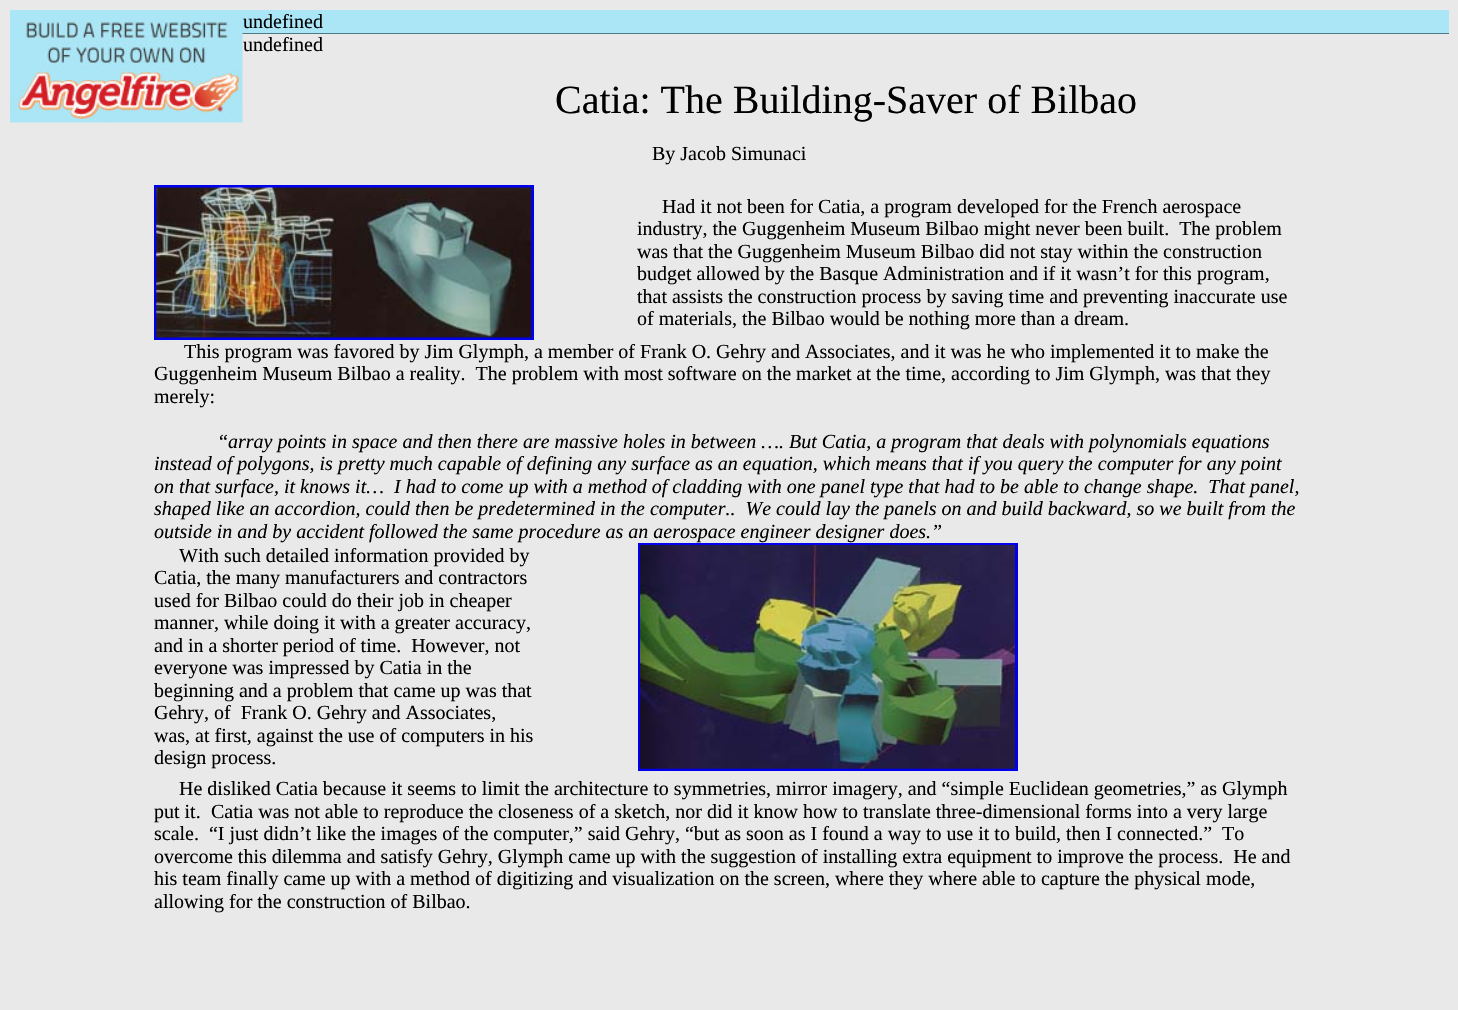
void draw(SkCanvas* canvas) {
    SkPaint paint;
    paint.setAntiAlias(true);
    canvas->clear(0xFFE9E9E9);
    paint.setColor(0xFFABE6F6);
    canvas->drawRect(SkRect::MakeXYWH(10, 10, 1439, 23), paint);
    paint.setColor(0xFF507A87);
    canvas->drawRect(SkRect::MakeXYWH(242, 33, 1207, 1), paint);
    SkFont font1(fontMgr->matchFamilyStyle("Liberation Serif", SkFontStyle::Normal()), 20);
    font1.setSubpixel(true);
    paint.setColor(0xFF000000);
    canvas->drawString("undefined", 243, 51, font1, paint);
    canvas->drawImageRect(SkImages::DeferredFromEncodedData(SkData::MakeFromFileName("img1.png")), SkRect::MakeXYWH(10, 20, 233, 103), SkSamplingOptions());
    canvas->drawString("undefined", 243, 28, font1, paint);
    SkFont font2(fontMgr->matchFamilyStyle("Liberation Serif", SkFontStyle::Normal()), 40);
    font2.setSubpixel(true);
    canvas->drawString("Catia: The Building-Saver of Bilbao", 555, 113, font2, paint);
    canvas->drawString("By Jacob Simunaci", 652, 160, font1, paint);
    paint.setStyle(SkPaint::kStroke_Style);
    paint.setStrokeWidth(3);
    paint.setColor(0xFF0000EE);
    canvas->drawRect(SkRect::MakeXYWH(155.5f, 186.5f, 377, 152), paint);
    canvas->drawImageRect(SkImages::DeferredFromEncodedData(SkData::MakeFromFileName("img2.png")), SkRect::MakeXYWH(156, 187, 376, 151), SkSamplingOptions());
    paint.setStyle(SkPaint::kFill_Style);
    paint.setColor(0xFF000000);
    canvas->drawString("Had it not been for Catia, a program developed for the French aerospace", 662, 213, font1, paint);
    canvas->drawString("industry, the Guggenheim Museum Bilbao might never been built.  The problem", 637, 235, font1, paint);
    canvas->drawString("was that the Guggenheim Museum Bilbao did not stay within the construction", 637, 258, font1, paint);
    canvas->drawString("budget allowed by the Basque Administration and if it wasn’t for this program,", 637, 280, font1, paint);
    canvas->drawString("that assists the construction process by saving time and preventing inaccurate use", 637, 303, font1, paint);
    canvas->drawString("of materials, the Bilbao would be nothing more than a dream.", 637, 325, font1, paint);
    canvas->drawString("This program was favored by Jim Glymph, a member of Frank O. Gehry and Associates, and it was he who implemented it to make the", 184, 358, font1, paint);
    canvas->drawString("Guggenheim Museum Bilbao a reality.  The problem with most software on the market at the time, according to Jim Glymph, was that they", 154, 380, font1, paint);
    canvas->drawString("merely:", 154, 403, font1, paint);
    canvas->drawString("“", 219, 448, font1, paint);
    SkFont font3(fontMgr->matchFamilyStyle("Liberation Serif", SkFontStyle::Italic()), 20);
    font3.setSubpixel(true);
    canvas->drawString("array points in space and then there are massive holes in between …. But Catia, a program that deals with polynomials equations", 228, 448, font3, paint);
    canvas->drawString("instead of polygons, is pretty much capable of defining any surface as an equation, which means that if you query the computer for any point", 154, 470, font3, paint);
    canvas->drawString("on that surface, it knows it…  I had to come up with a method of cladding with one panel type that had to be able to change shape.  That panel,", 154, 493, font3, paint);
    canvas->drawString("shaped like an accordion, could then be predetermined in the computer..  We could lay the panels on and build backward, so we built from the", 154, 515, font3, paint);
    canvas->drawString("outside in and by accident followed the same procedure as an aerospace engineer designer does.”", 154, 538, font3, paint);
    canvas->drawString("With such detailed information provided by", 179, 562, font1, paint);
    canvas->drawString("Catia, the many manufacturers and contractors", 154, 584, font1, paint);
    canvas->drawString("used for Bilbao could do their job in cheaper", 154, 607, font1, paint);
    canvas->drawString("manner, while doing it with a greater accuracy,", 154, 629, font1, paint);
    canvas->drawString("and in a shorter period of time.  However, not", 154, 652, font1, paint);
    canvas->drawString("everyone was impressed by Catia in the", 154, 674, font1, paint);
    canvas->drawString("beginning and a problem that came up was that", 154, 697, font1, paint);
    canvas->drawString("Gehry, of  Frank O. Gehry and Associates,", 154, 719, font1, paint);
    canvas->drawString("was, at first, against the use of computers in his", 154, 742, font1, paint);
    canvas->drawString("design process.", 154, 764, font1, paint);
    paint.setStyle(SkPaint::kStroke_Style);
    paint.setColor(0xFF0000EE);
    canvas->drawRect(SkRect::MakeXYWH(639.5f, 544.5f, 377, 225), paint);
    canvas->drawImageRect(SkImages::DeferredFromEncodedData(SkData::MakeFromFileName("img3.png")), SkRect::MakeXYWH(640, 545, 375, 224), SkSamplingOptions());
    paint.setStyle(SkPaint::kFill_Style);
    paint.setColor(0xFF000000);
    canvas->drawString("He disliked Catia because it seems to limit the architecture to symmetries, mirror imagery, and “simple Euclidean geometries,” as Glymph", 179, 795, font1, paint);
    canvas->drawString("put it.", 154, 818, font1, paint);
    canvas->drawString("Catia was not able to reproduce the closeness of a sketch, nor did it know how to translate three-dimensional forms into a very large", 211, 818, font1, paint);
    canvas->drawString("scale.  “I just didn’t like the images of the computer,” said Gehry, “but as soon as I found a way to use it to build, then I connected.”  To", 154, 840, font1, paint);
    canvas->drawString("overcome this dilemma and satisfy Gehry, Glymph came up with the suggestion of installing extra equipment to improve the process.  He and", 154, 863, font1, paint);
    canvas->drawString("his team finally came up with a method of digitizing and visualization on the screen, where they where able to capture the physical mode,", 154, 885, font1, paint);
    canvas->drawString("allowing for the construction of Bilbao.", 154, 908, font1, paint);
}
